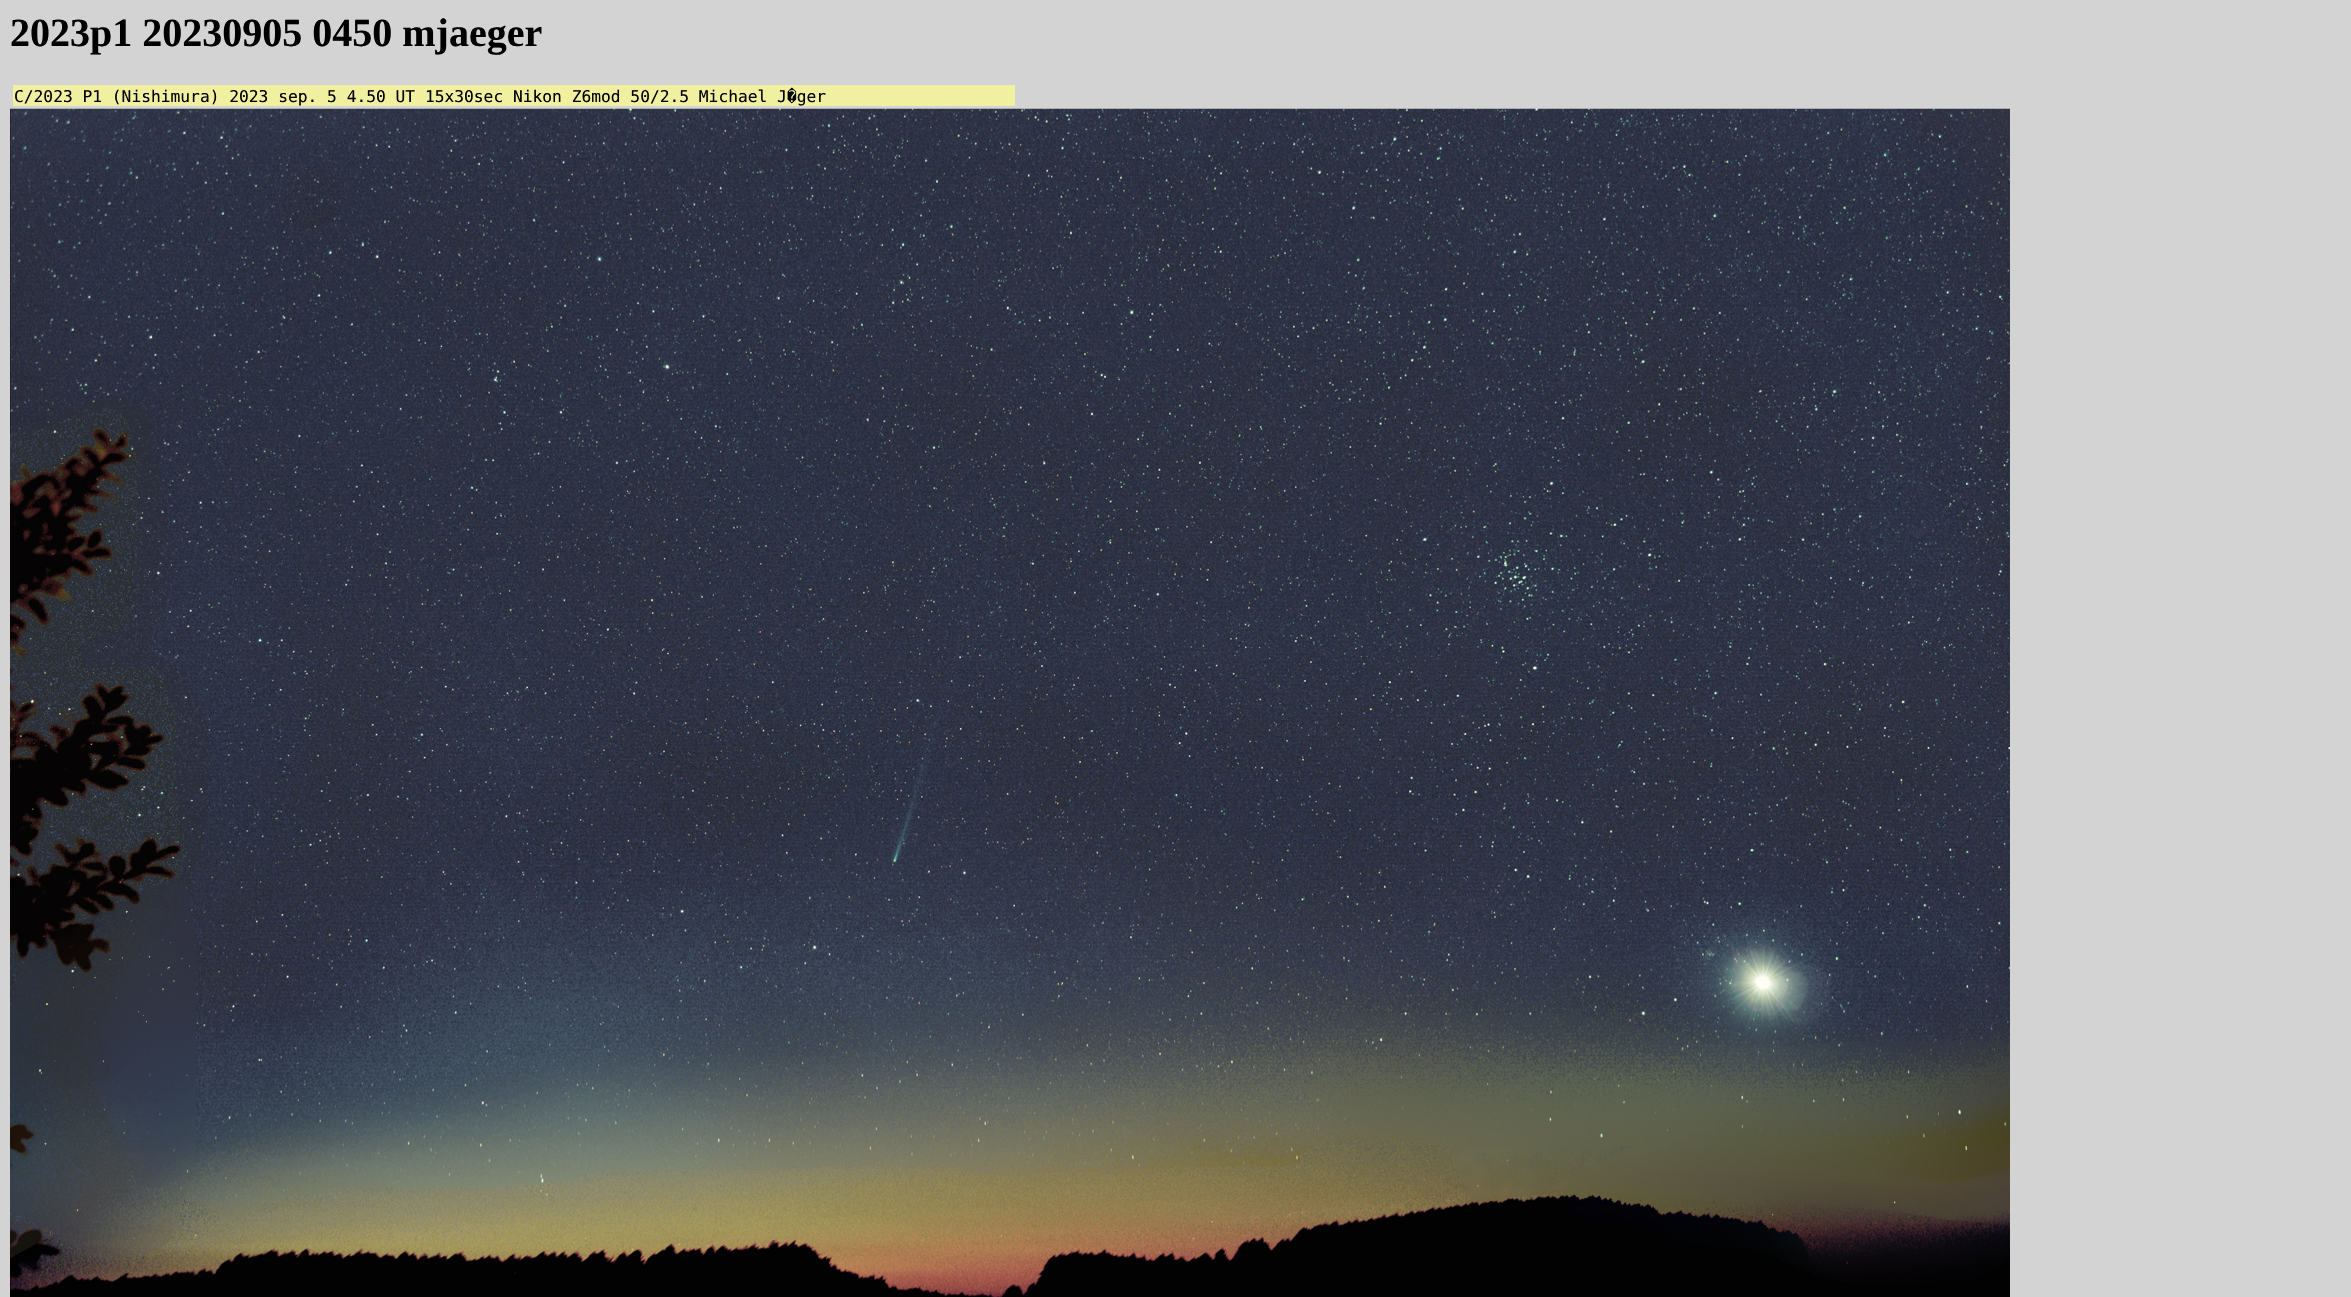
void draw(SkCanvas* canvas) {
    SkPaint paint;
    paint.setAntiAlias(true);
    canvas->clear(0xFFD3D3D3);
    SkFont font1(fontMgr->matchFamilyStyle("Liberation Serif", SkFontStyle::Bold()), 40);
    font1.setSubpixel(true);
    paint.setColor(0xFF000000);
    canvas->drawString("2023p1 20230905 0450 mjaeger", 10, 46, font1, paint);
    paint.setColor(0xFFF0F0A0);
    canvas->drawRect(SkRect::MakeXYWH(13, 85, 1002, 21), paint);
    SkFont font2(fontMgr->matchFamilyStyle("DejaVu Sans Mono", SkFontStyle::Normal()), 16.25f);
    font2.setSubpixel(true);
    paint.setColor(0xFF000000);
    canvas->drawString("C/2023 P1 (Nishimura) 2023 sep. 5 4.50 UT 15x30sec Nikon Z6mod 50/2.5 Michael J�ger", 14, 102, font2, paint);
    canvas->drawImageRect(SkImages::DeferredFromEncodedData(SkData::MakeFromFileName("img1.png")), SkRect::MakeXYWH(10, 108, 2000, 1189), SkSamplingOptions());
}
